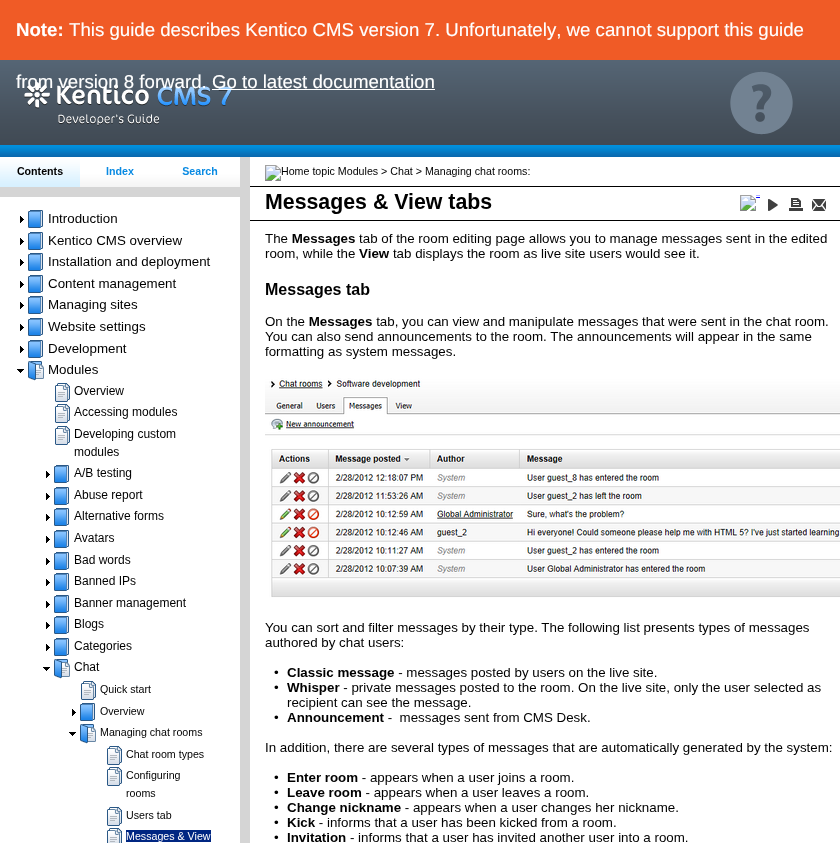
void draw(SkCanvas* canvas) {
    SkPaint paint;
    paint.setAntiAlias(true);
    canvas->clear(0xFFFFFFFF);
    paint.setColor(0xFFF05B26);
    canvas->drawRect(SkRect::MakeXYWH(0, 0, 840, 60), paint);
    SkFont font1(fontMgr->matchFamilyStyle("Liberation Sans", SkFontStyle::Bold()), 18.65f);
    font1.setSubpixel(true);
    paint.setColor(0xFFFFFFFF);
    canvas->drawString("Note:", 16, 36, font1, paint);
    SkFont font2(fontMgr->matchFamilyStyle("Liberation Sans", SkFontStyle::Normal()), 18.65f);
    font2.setSubpixel(true);
    canvas->drawString("This guide describes Kentico CMS version 7. Unfortunately, we cannot support this guide", 69, 36, font2, paint);
    canvas->drawImageRect(SkImages::DeferredFromEncodedData(SkData::MakeFromFileName("img1.png")), SkRect::MakeXYWH(0, 60, 840, 97), SkSamplingOptions());
    canvas->drawImageRect(SkImages::DeferredFromEncodedData(SkData::MakeFromFileName("img2.png")), SkRect::MakeXYWH(24, 82, 208, 44), SkSamplingOptions());
    canvas->drawString("from version 8 forward. Go to latest documentation", 16, 88, font2, paint);
    canvas->drawRect(SkRect::MakeXYWH(212, 89, 223, 1), paint);
    canvas->drawImageRect(SkImages::DeferredFromEncodedData(SkData::MakeFromFileName("img3.png")), SkRect::MakeXYWH(730, 71, 63, 64), SkSamplingOptions());
    canvas->drawImageRect(SkImages::DeferredFromEncodedData(SkData::MakeFromFileName("img4.png")), SkRect::MakeXYWH(0, 157, 250, 686), SkSamplingOptions());
    canvas->drawImageRect(SkImages::DeferredFromEncodedData(SkData::MakeFromFileName("img5.png")), SkRect::MakeXYWH(250, 165, 590, 677), SkSamplingOptions());
}
